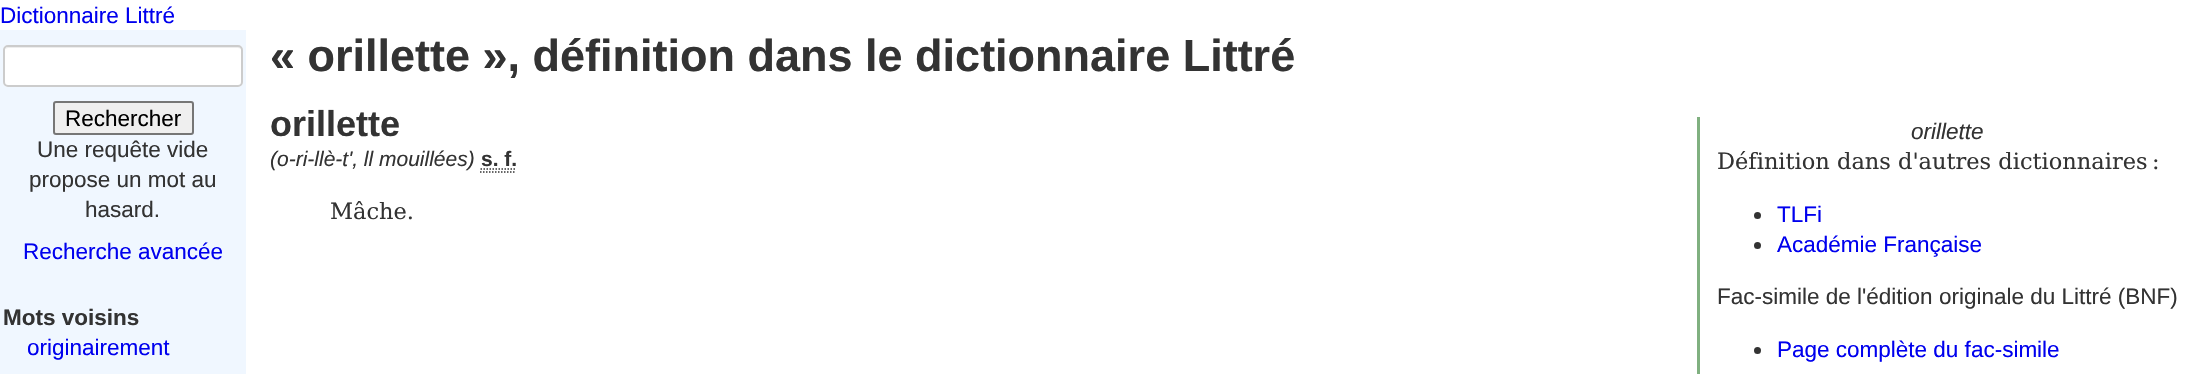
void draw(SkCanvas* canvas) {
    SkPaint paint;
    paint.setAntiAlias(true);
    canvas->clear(0xFFFFFFFF);
    SkFont font1(fontMgr->matchFamilyStyle("Liberation Sans", SkFontStyle::Normal()), 22.5f);
    font1.setSubpixel(true);
    paint.setColor(0xFF0000EE);
    canvas->drawString("Dictionnaire Littré", 0, 23, font1, paint);
    paint.setColor(0xFFF0F7FF);
    canvas->drawRect(SkRect::MakeXYWH(0, 30, 246, 344), paint);
    paint.setColor(0xFFFFFFFF);
    canvas->drawRoundRect(SkRect::MakeXYWH(3, 45, 240, 42), 5, 5, paint);
    paint.setColor(0xFFEDEDED);
    canvas->drawPath(SkPathBuilder().moveTo(8, 48).lineTo(238, 48).cubicTo(240, 48, 242, 49, 242, 51).lineTo(242, 50).cubicTo(242, 48, 241, 47, 239, 47).lineTo(8, 47).cubicTo(7, 47, 6, 48, 5, 49).close().detach(), paint);
    paint.setStyle(SkPaint::kStroke_Style);
    paint.setStrokeWidth(2);
    paint.setColor(0xFFCCCCCC);
    canvas->drawRoundRect(SkRect::MakeXYWH(4, 46, 238, 40), 4, 4, paint);
    paint.setStyle(SkPaint::kFill_Style);
    paint.setColor(0xFFEFEFEF);
    canvas->drawRoundRect(SkRect::MakeXYWH(54, 102, 139, 32), 2, 2, paint);
    paint.setStyle(SkPaint::kStroke_Style);
    paint.setColor(0xFF767676);
    canvas->drawRoundRect(SkRect::MakeXYWH(54, 102, 139, 32), 2, 2, paint);
    paint.setStyle(SkPaint::kFill_Style);
    paint.setColor(0xFF000000);
    canvas->drawString("Rechercher", 65, 126, font1, paint);
    paint.setColor(0xFF333333);
    canvas->drawString("Une requête vide", 37, 157, font1, paint);
    canvas->drawString("propose un mot au", 29, 187, font1, paint);
    canvas->drawString("hasard.", 85, 217, font1, paint);
    paint.setColor(0xFF0000EE);
    canvas->drawString("Recherche avancée", 23, 259, font1, paint);
    SkFont font2(fontMgr->matchFamilyStyle("Liberation Sans", SkFontStyle::Bold()), 22.5f);
    font2.setSubpixel(true);
    paint.setColor(0xFF333333);
    canvas->drawString("Mots voisins", 3, 325, font2, paint);
    paint.setColor(0xFF0000EE);
    canvas->drawString("originairement", 27, 355, font1, paint);
    SkFont font3(fontMgr->matchFamilyStyle("Liberation Sans", SkFontStyle::Bold()), 45);
    font3.setSubpixel(true);
    paint.setColor(0xFF333333);
    canvas->drawString("« orillette », définition dans le dictionnaire Littré", 270, 71, font3, paint);
    SkFont font4(fontMgr->matchFamilyStyle("Liberation Sans", SkFontStyle::Bold()), 36);
    font4.setSubpixel(true);
    canvas->drawString("orillette", 270, 136, font4, paint);
    SkFont font5(fontMgr->matchFamilyStyle("Liberation Sans", SkFontStyle::Italic()), 21);
    font5.setSubpixel(true);
    canvas->drawString("(o-ri-llè-t', ll mouillées)", 270, 166, font5, paint);
    SkFont font6(fontMgr->matchFamilyStyle("Liberation Sans", SkFontStyle::Bold()), 21);
    font6.setSubpixel(true);
    canvas->drawString("s. f.", 481, 166, font6, paint);
    paint.setStyle(SkPaint::kStroke_Style);
    paint.setStrokeWidth(1.5f);
    paint.setPathEffect(SkDashPathEffect::Make({{1.5f, 1.5f}}, 0));
    canvas->drawPath(SkPathBuilder().moveTo(480, 172).lineTo(516, 172).moveTo(480.5f, 169).lineTo(516.5f, 169).detach(), paint);
    paint.setPathEffect(nullptr);
    SkFont font7(fontMgr->matchFamilyStyle("DejaVu Serif", SkFontStyle::Normal()), 22.5f);
    font7.setSubpixel(true);
    paint.setStyle(SkPaint::kFill_Style);
    canvas->drawString("Mâche.", 330, 219, font7, paint);
    paint.setColor(0xFF80B080);
    canvas->drawRect(SkRect::MakeXYWH(1697, 117, 3, 257), paint);
    SkFont font8(fontMgr->matchFamilyStyle("Liberation Sans", SkFontStyle::Italic()), 22.5f);
    font8.setSubpixel(true);
    paint.setColor(0xFF333333);
    canvas->drawString("orillette", 1911, 139, font8, paint);
    canvas->drawString("Définition dans d'autres dictionnaires :", 1717, 169, font7, paint);
    canvas->drawCircle(1757.5f, 215.5f, 3.5f, paint);
    paint.setColor(0xFF0000EE);
    canvas->drawString("TLFi", 1777, 222, font1, paint);
    paint.setColor(0xFF333333);
    canvas->drawCircle(1757.5f, 245.5f, 3.5f, paint);
    paint.setColor(0xFF0000EE);
    canvas->drawString("Académie Française", 1777, 252, font1, paint);
    paint.setColor(0xFF333333);
    canvas->drawString("Fac-simile de l'édition originale du Littré (BNF)", 1717, 304, font1, paint);
    canvas->drawCircle(1757.5f, 350.5f, 3.5f, paint);
    paint.setColor(0xFF0000EE);
    canvas->drawString("Page complète du fac-simile", 1777, 357, font1, paint);
}
